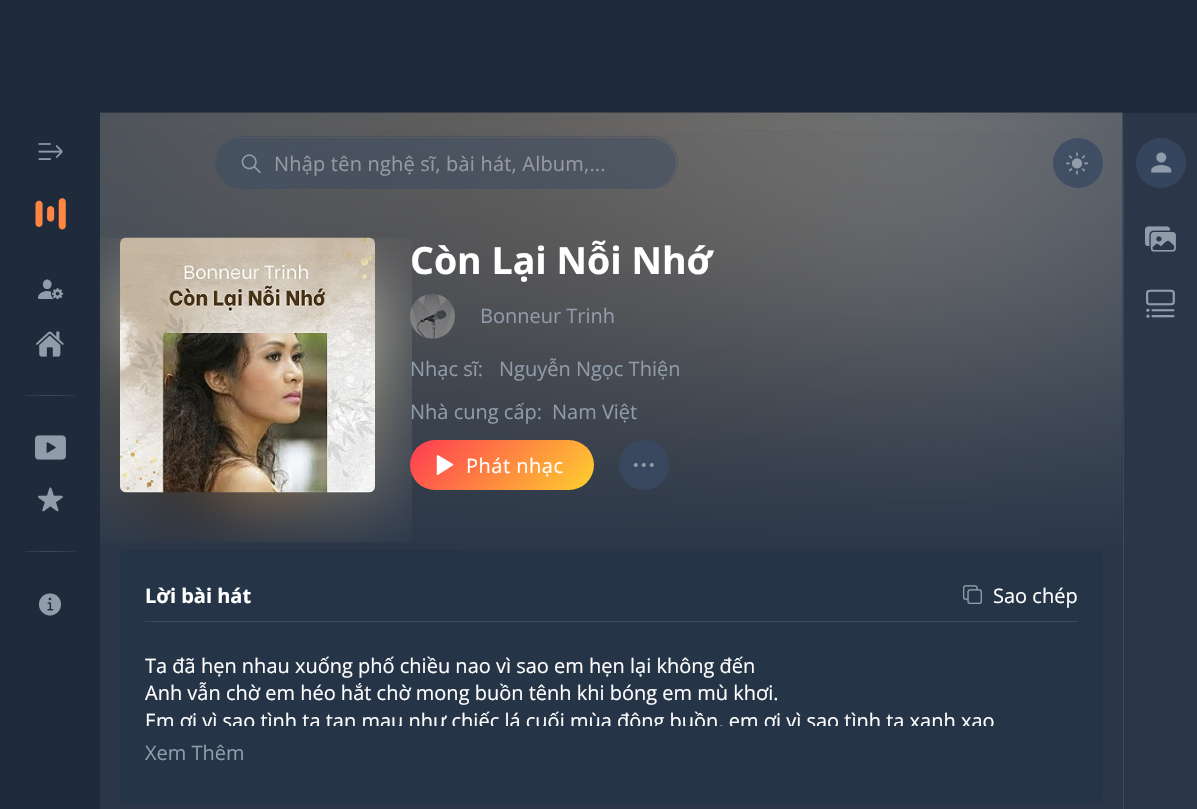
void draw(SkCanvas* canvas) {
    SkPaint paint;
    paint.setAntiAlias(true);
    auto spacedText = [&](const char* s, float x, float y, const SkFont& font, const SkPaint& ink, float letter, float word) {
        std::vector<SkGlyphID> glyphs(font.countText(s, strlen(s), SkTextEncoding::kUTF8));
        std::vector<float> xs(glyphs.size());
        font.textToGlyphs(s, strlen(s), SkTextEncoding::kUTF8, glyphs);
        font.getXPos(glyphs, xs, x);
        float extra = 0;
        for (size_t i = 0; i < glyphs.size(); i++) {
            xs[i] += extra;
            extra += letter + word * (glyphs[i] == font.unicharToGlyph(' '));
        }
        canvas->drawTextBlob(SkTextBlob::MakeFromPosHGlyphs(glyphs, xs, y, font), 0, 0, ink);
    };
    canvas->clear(0xFF2B3748);
    paint.setColor(0xFF1F2A3A);
    canvas->drawRect(SkRect::MakeXYWH(0, 0, 1197, 113), paint);
    canvas->drawRect(SkRect::MakeXYWH(0, 113, 100, 696), paint);
    SkFont font1(fontMgr->matchFamilyStyle("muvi", SkFontStyle::Normal()), 25);
    font1.setSubpixel(true);
    paint.setColor(0xFF909CAA);
    canvas->save();
    canvas->rotate(180, 63, 140);
    canvas->drawString("3", 63, 140, font1, paint);
    canvas->restore();
    canvas->drawImageRect(SkImages::DeferredFromEncodedData(SkData::MakeFromFileName("img1.png")), SkRect::MakeXYWH(35, 198, 31, 32), SkSamplingOptions());
    canvas->drawString("6", 38, 303, font1, paint);
    canvas->drawString("$", 36, 355, font1, paint);
    {
        const SkColor colors[] = {0xFF2B3748, 0xFF384962, 0xFF2B3748};
        const float stops[] = {0, 0.47f, 0.98f};
        const SkPoint ends[] = {{25, 396}, {75, 396}};
        paint.setShader(SkGradientShader::MakeLinear(ends, colors, stops, 3, SkTileMode::kClamp));
        paint.setAlpha(255);
    }
    canvas->drawRect(SkRect::MakeXYWH(25, 395, 50, 1), paint);
    SkFont font2(fontMgr->matchFamilyStyle("muvi", SkFontStyle::Normal()), 24);
    font2.setSubpixel(true);
    paint.setShader(nullptr);
    paint.setColor(0xFF909CAA);
    canvas->drawString("+", 35, 458, font2, paint);
    canvas->drawString("5", 38, 511, font1, paint);
    {
        const SkColor colors[] = {0xFF2B3748, 0xFF384962, 0xFF2B3748};
        const float stops[] = {0, 0.47f, 0.98f};
        const SkPoint ends[] = {{25, 552}, {75, 552}};
        paint.setShader(SkGradientShader::MakeLinear(ends, colors, stops, 3, SkTileMode::kClamp));
        paint.setAlpha(255);
    }
    canvas->drawRect(SkRect::MakeXYWH(25, 551, 50, 1), paint);
    SkFont font3(fontMgr->matchFamilyStyle("muvi", SkFontStyle::Normal()), 22);
    font3.setSubpixel(true);
    paint.setShader(nullptr);
    paint.setColor(0xFF909CAA);
    canvas->drawString("8", 39, 614, font3, paint);
    canvas->drawImageRect(SkImages::DeferredFromEncodedData(SkData::MakeFromFileName("img3.png")), SkRect::MakeXYWH(100, 112, 1023, 435), SkSamplingOptions());
    {
        const SkColor colors[] = {0x002B3748, 0xFF2B3748};
        const float stops[] = {0, 1};
        const SkPoint ends[] = {{611, 112}, {611, 550}};
        paint.setShader(SkGradientShader::MakeLinear(ends, colors, stops, 2, SkTileMode::kClamp));
        paint.setAlpha(255);
    }
    canvas->drawRect(SkRect::MakeXYWH(100, 130, 1023, 417), paint);
    paint.setStyle(SkPaint::kStroke_Style);
    paint.setStrokeWidth(1);
    paint.setShader(nullptr);
    paint.setColor(0x80384962);
    canvas->drawRoundRect(SkRect::MakeXYWH(215.5f, 136.5f, 462, 52), 26, 26, paint);
    paint.setStyle(SkPaint::kFill_Style);
    canvas->drawRoundRect(SkRect::MakeXYWH(216, 138, 460, 50), 25, 25, paint);
    canvas->drawImageRect(SkImages::DeferredFromEncodedData(SkData::MakeFromFileName("img2.png")), SkRect::MakeXYWH(241, 154, 20, 20), SkSamplingOptions());
    SkFont font4(fontMgr->matchFamilyStyle("Open Sans", SkFontStyle::Normal()), 20);
    font4.setSubpixel(true);
    paint.setColor(0xFF969BA2);
    spacedText("Nhập tên nghệ sĩ, bài hát, Album,...", 274, 171, font4, paint, 0.2f, 0);
    paint.setColor(0xCC384962);
    canvas->drawCircle(1078, 163, 25, paint);
    paint.setColor(0xFF909CAA);
    canvas->drawString("2", 1066, 173, font3, paint);
    canvas->drawImageRect(SkImages::DeferredFromEncodedData(SkData::MakeFromFileName("img5.png")), SkRect::MakeXYWH(100, 238, 312, 304), SkSamplingOptions());
    canvas->drawImageRect(SkImages::DeferredFromEncodedData(SkData::MakeFromFileName("img4.png")), SkRect::MakeXYWH(120, 237, 255, 256), SkSamplingOptions());
    SkFont font5(fontMgr->matchFamilyStyle("Open Sans", SkFontStyle::Bold()), 37.5f);
    font5.setSubpixel(true);
    paint.setColor(0xFFFFFFFF);
    canvas->drawString("Còn Lại Nỗi Nhớ", 410, 274, font5, paint);
    canvas->drawImageRect(SkImages::DeferredFromEncodedData(SkData::MakeFromFileName("img6.png")), SkRect::MakeXYWH(410, 294, 45, 45), SkSamplingOptions());
    paint.setColor(0xFF909CAA);
    canvas->drawString("Bonneur Trinh", 480, 323, font4, paint);
    canvas->drawString("Nhạc sĩ:", 410, 376, font4, paint);
    canvas->drawString("Nguyễn Ngọc Thiện", 499, 376, font4, paint);
    canvas->drawString("Nhà cung cấp:", 410, 419, font4, paint);
    canvas->drawString("Nam Việt", 552, 419, font4, paint);
    {
        const SkColor colors[] = {0xFFFE4251, 0xFFFECA30};
        const float stops[] = {0.05f, 0.96f};
        const SkPoint ends[] = {{439, 408}, {565, 522}};
        paint.setShader(SkGradientShader::MakeLinear(ends, colors, stops, 2, SkTileMode::kClamp));
        paint.setAlpha(255);
    }
    canvas->drawRoundRect(SkRect::MakeXYWH(410, 440, 184, 50), 25, 25, paint);
    canvas->drawImageRect(SkImages::DeferredFromEncodedData(SkData::MakeFromFileName("img7.png")), SkRect::MakeXYWH(436, 455, 18, 20), SkSamplingOptions());
    paint.setShader(nullptr);
    paint.setColor(0xFFFFFFFF);
    spacedText("Phát nhạc", 466, 473, font4, paint, 0.5f, 0);
    paint.setColor(0xCC384962);
    canvas->drawCircle(644, 465, 25, paint);
    canvas->drawImageRect(SkImages::DeferredFromEncodedData(SkData::MakeFromFileName("img8.png")), SkRect::MakeXYWH(633, 463, 21, 4), SkSamplingOptions());
    paint.setColor(0xFF263447);
    canvas->drawRoundRect(SkRect::MakeXYWH(120, 550, 983, 254), 6, 6, paint);
    paint.setColor(0xFF384962);
    canvas->drawRect(SkRect::MakeXYWH(145, 621, 933, 1), paint);
    SkFont font6(fontMgr->matchFamilyStyle("Open Sans", SkFontStyle::Bold()), 20);
    font6.setSubpixel(true);
    paint.setColor(0xFFFFFFFF);
    canvas->drawString("Lời bài hát", 145, 603, font6, paint);
    SkFont font7(fontMgr->matchFamilyStyle("muvi", SkFontStyle::Normal()), 20);
    font7.setSubpixel(true);
    paint.setColor(0xFF909CAA);
    canvas->drawString("9", 963, 604, font7, paint);
    paint.setColor(0xFFFFFFFF);
    canvas->drawString("Sao chép", 993, 603, font4, paint);
    canvas->drawString("Ta đã hẹn nhau xuống phố chiều nao vì sao em hẹn lại không đến", 145, 673, font4, paint);
    canvas->drawString("Anh vẫn chờ em héo hắt chờ mong buồn tênh khi bóng em mù khơi.", 145, 700, font4, paint);
    canvas->save();
    canvas->clipRect(SkRect::MakeXYWH(145, 623, 933, 103));
    canvas->drawString("Em ơi vì sao tình ta tan mau như chiếc lá cuối mùa đông buồn, em ơi vì sao tình ta xanh xao", 145, 728, font4, paint);
    canvas->restore();
    paint.setColor(0xFF909CAA);
    canvas->drawString("Xem Thêm", 145, 760, font4, paint);
    {
        const SkColor colors[] = {0xFF2B3748, 0xFF384962};
        const float stops[] = {0, 0.1f};
        const SkPoint ends[] = {{1123, 113}, {1123, 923}};
        paint.setShader(SkGradientShader::MakeLinear(ends, colors, stops, 2, SkTileMode::kClamp));
        paint.setAlpha(255);
    }
    canvas->drawRect(SkRect::MakeXYWH(1123, 113, 1, 696), paint);
    paint.setShader(nullptr);
    paint.setColor(0xFF35455D);
    canvas->drawCircle(1161, 163, 25, paint);
    canvas->drawImageRect(SkImages::DeferredFromEncodedData(SkData::MakeFromFileName("img9.png")), SkRect::MakeXYWH(1151, 152, 21, 21), SkSamplingOptions());
    paint.setColor(0xFF909CAA);
    canvas->drawString("#", 1145, 250, font1, paint);
    SkFont font8(fontMgr->matchFamilyStyle("muvi", SkFontStyle::Normal()), 28);
    font8.setSubpixel(true);
    canvas->drawString("%", 1146, 316, font8, paint);
}
